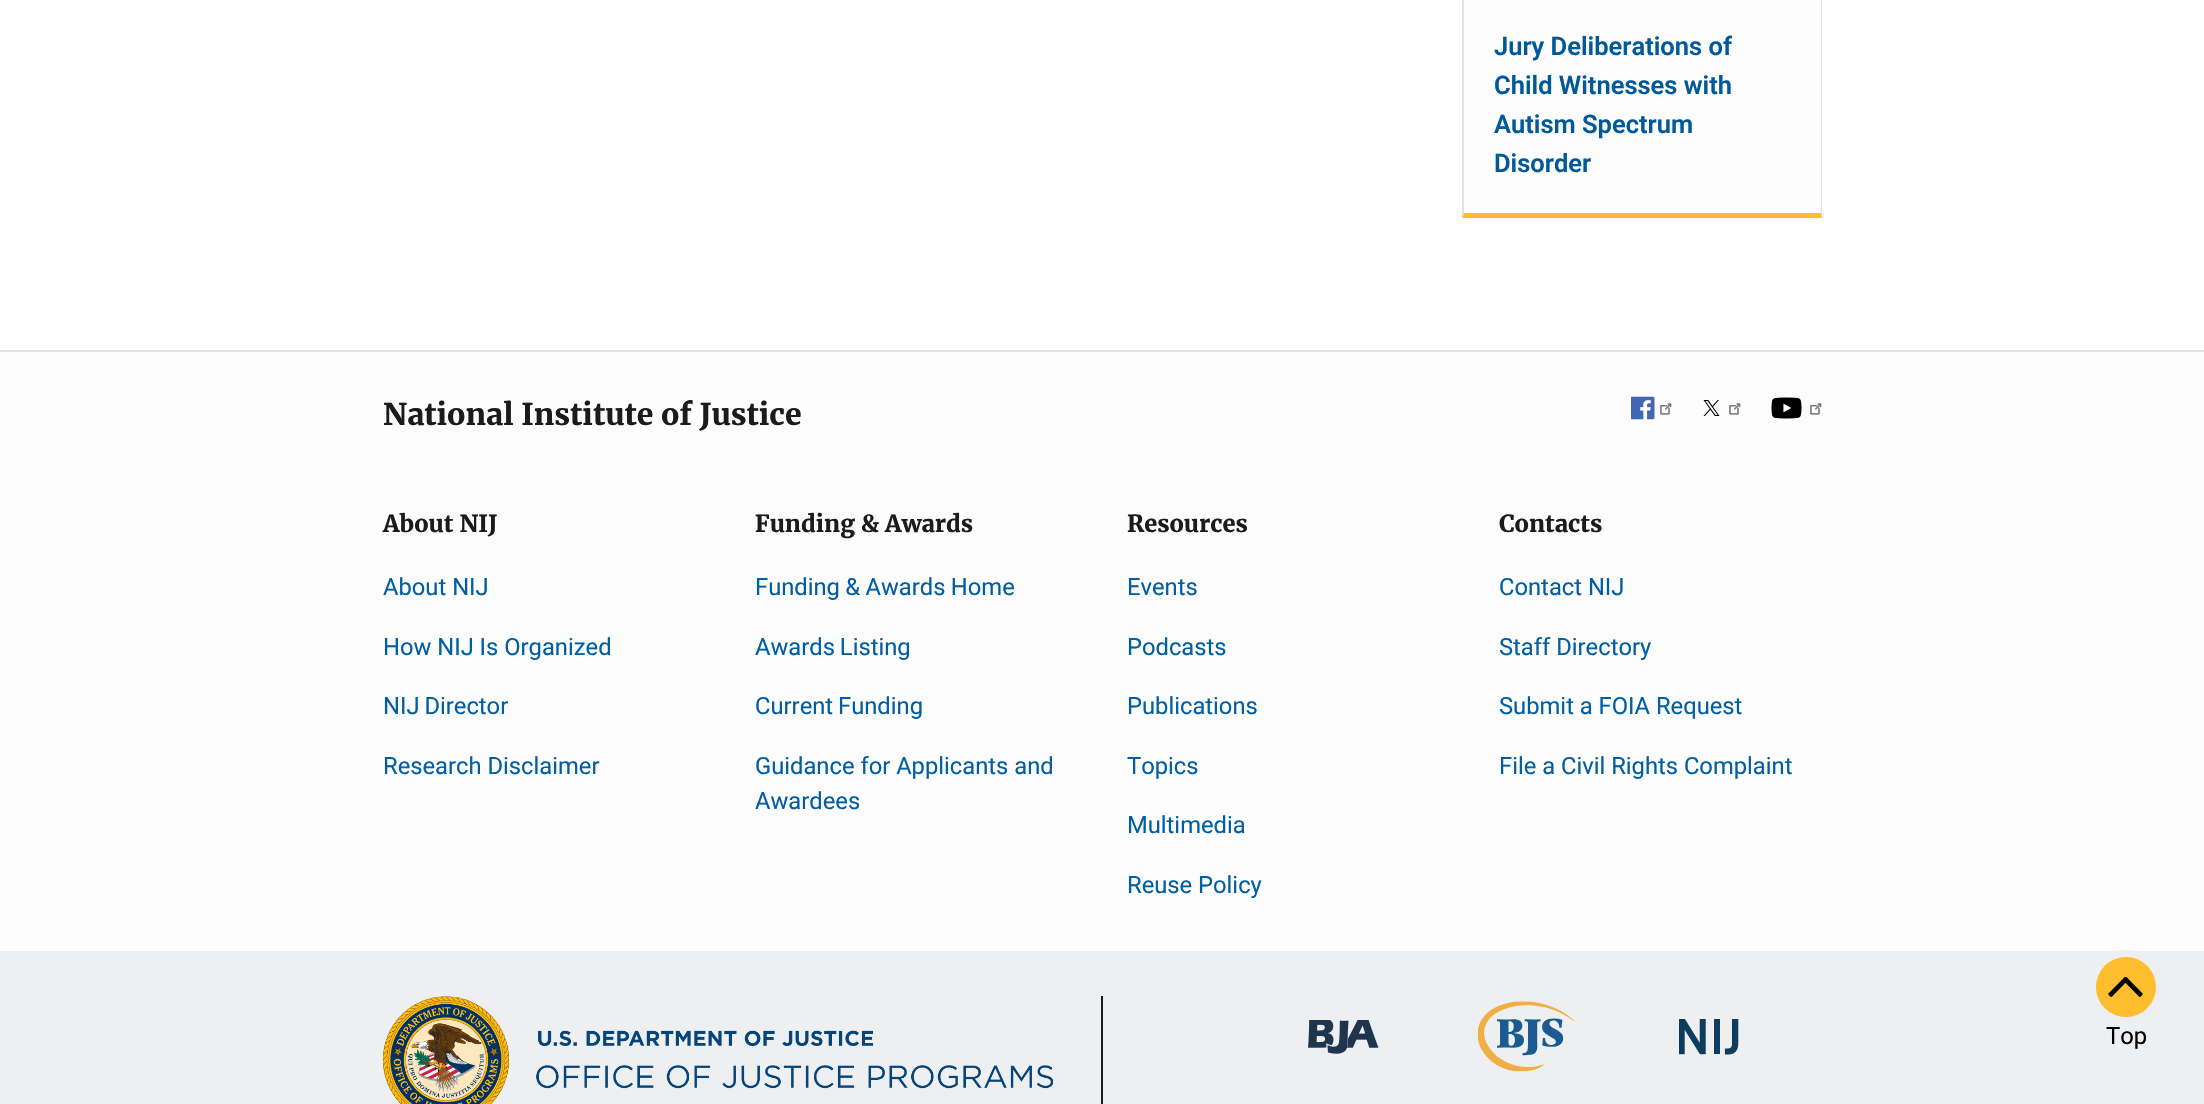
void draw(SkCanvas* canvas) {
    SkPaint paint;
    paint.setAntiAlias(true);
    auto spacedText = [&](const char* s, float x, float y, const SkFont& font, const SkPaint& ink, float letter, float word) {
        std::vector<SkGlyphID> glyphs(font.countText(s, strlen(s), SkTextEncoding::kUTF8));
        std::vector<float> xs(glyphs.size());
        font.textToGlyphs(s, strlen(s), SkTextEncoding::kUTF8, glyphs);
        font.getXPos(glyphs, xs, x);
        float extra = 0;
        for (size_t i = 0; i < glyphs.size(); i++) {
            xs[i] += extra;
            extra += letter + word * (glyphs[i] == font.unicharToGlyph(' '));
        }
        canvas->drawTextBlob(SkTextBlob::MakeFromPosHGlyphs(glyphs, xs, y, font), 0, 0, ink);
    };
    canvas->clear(0xFFFFFFFF);
    paint.setColor(0xFFFCFCFC);
    canvas->drawRect(SkRect::MakeXYWH(1464, 0, 357, 213), paint);
    paint.setColor(0xFFDFE1E2);
    canvas->drawPath(SkPathBuilder().moveTo(1822, -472).lineTo(1822, 218).lineTo(1821, 213).lineTo(1821, -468).close().detach(), paint);
    paint.setColor(0xFFFFBE2E);
    canvas->drawPath(SkPathBuilder().moveTo(1822, 218).lineTo(1462, 218).lineTo(1464, 213).lineTo(1821, 213).close().detach(), paint);
    paint.setColor(0xFFDFE1E2);
    canvas->drawPath(SkPathBuilder().moveTo(1462, 218).lineTo(1462, -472).lineTo(1464, -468).lineTo(1464, 213).close().detach(), paint);
    SkFont font1(fontMgr->matchFamilyStyle("Roboto", SkFontStyle(600, SkFontStyle::kNormal_Width, SkFontStyle::kUpright_Slant)), 25.5f);
    font1.setSubpixel(true);
    paint.setColor(0xFF005999);
    canvas->drawString("Jury Deliberations of", 1494, 55, font1, paint);
    canvas->drawString("Child Witnesses with", 1494, 94, font1, paint);
    canvas->drawString("Autism Spectrum", 1494, 133, font1, paint);
    canvas->drawString("Disorder", 1494, 172, font1, paint);
    paint.setColor(0xFFFCFCFC);
    canvas->drawRect(SkRect::MakeXYWH(0, 352, 2204, 599), paint);
    paint.setColor(0xFFDFE1E2);
    canvas->drawRect(SkRect::MakeXYWH(0, 350, 2204, 2), paint);
    SkFont font2(fontMgr->matchFamilyStyle("Merriweather", SkFontStyle::Bold()), 30);
    font2.setSubpixel(true);
    paint.setColor(0xFF1B1B1B);
    canvas->drawString("National Institute of Justice", 383, 425, font2, paint);
    canvas->drawImageRect(SkImages::DeferredFromEncodedData(SkData::MakeFromFileName("img1.png")), SkRect::MakeXYWH(1631, 396, 24, 24), SkSamplingOptions());
    canvas->drawImageRect(SkImages::DeferredFromEncodedData(SkData::MakeFromFileName("img2.png")), SkRect::MakeXYWH(1660, 403, 12, 12), SkSamplingOptions());
    canvas->drawImageRect(SkImages::DeferredFromEncodedData(SkData::MakeFromFileName("img3.png")), SkRect::MakeXYWH(1703, 400, 17, 16), SkSamplingOptions());
    canvas->drawImageRect(SkImages::DeferredFromEncodedData(SkData::MakeFromFileName("img2.png")), SkRect::MakeXYWH(1729, 403, 12, 12), SkSamplingOptions());
    canvas->drawImageRect(SkImages::DeferredFromEncodedData(SkData::MakeFromFileName("img4.png")), SkRect::MakeXYWH(1771, 397, 31, 22), SkSamplingOptions());
    canvas->drawImageRect(SkImages::DeferredFromEncodedData(SkData::MakeFromFileName("img2.png")), SkRect::MakeXYWH(1810, 403, 12, 12), SkSamplingOptions());
    SkFont font3(fontMgr->matchFamilyStyle("Merriweather", SkFontStyle::Bold()), 23.5f);
    font3.setSubpixel(true);
    canvas->drawString("About NIJ", 383, 532, font3, paint);
    SkFont font4(fontMgr->matchFamilyStyle("Roboto", SkFontStyle::Normal()), 23.75f);
    font4.setSubpixel(true);
    paint.setColor(0xFF005EA2);
    canvas->drawString("About NIJ", 383, 595, font4, paint);
    canvas->drawString("How NIJ Is Organized", 383, 655, font4, paint);
    spacedText("NIJ Director", 383, 714, font4, paint, 0, -1);
    canvas->drawString("Research Disclaimer", 383, 774, font4, paint);
    paint.setColor(0xFF1B1B1B);
    canvas->drawString("Funding & Awards", 755, 532, font3, paint);
    paint.setColor(0xFF005EA2);
    spacedText("Funding & Awards Home", 755, 595, font4, paint, 0, -0.5f);
    spacedText("Awards Listing", 755, 655, font4, paint, 0, -1);
    spacedText("Current Funding", 755, 714, font4, paint, 0, -1);
    canvas->drawString("Guidance for Applicants and", 755, 774, font4, paint);
    canvas->drawString("Awardees", 755, 809, font4, paint);
    paint.setColor(0xFF1B1B1B);
    canvas->drawString("Resources", 1127, 532, font3, paint);
    paint.setColor(0xFF005EA2);
    canvas->drawString("Events", 1127, 595, font4, paint);
    canvas->drawString("Podcasts", 1127, 655, font4, paint);
    canvas->drawString("Publications", 1127, 714, font4, paint);
    canvas->drawString("Topics", 1127, 774, font4, paint);
    canvas->drawString("Multimedia", 1127, 833, font4, paint);
    canvas->drawString("Reuse Policy", 1127, 893, font4, paint);
    paint.setColor(0xFF1B1B1B);
    canvas->drawString("Contacts", 1499, 532, font3, paint);
    paint.setColor(0xFF005EA2);
    canvas->drawString("Contact NIJ", 1499, 595, font4, paint);
    canvas->drawString("Staff Directory", 1499, 655, font4, paint);
    canvas->drawString("Submit a FOIA Request", 1499, 714, font4, paint);
    canvas->drawString("File a Civil Rights Complaint", 1499, 774, font4, paint);
    paint.setColor(0xFFEDEFF0);
    canvas->drawRect(SkRect::MakeXYWH(0, 951, 2204, 153), paint);
    paint.setColor(0xFF1B1B1B);
    canvas->drawRect(SkRect::MakeXYWH(1101, 996, 2, 108), paint);
    canvas->drawImageRect(SkImages::DeferredFromEncodedData(SkData::MakeFromFileName("img5.png")), SkRect::MakeXYWH(383, 996, 671, 108), SkSamplingOptions());
    canvas->drawImageRect(SkImages::DeferredFromEncodedData(SkData::MakeFromFileName("img6.png")), SkRect::MakeXYWH(1308, 1020, 71, 34), SkSamplingOptions());
    canvas->drawImageRect(SkImages::DeferredFromEncodedData(SkData::MakeFromFileName("img7.png")), SkRect::MakeXYWH(1478, 1001, 97, 71), SkSamplingOptions());
    canvas->drawImageRect(SkImages::DeferredFromEncodedData(SkData::MakeFromFileName("img8.png")), SkRect::MakeXYWH(1679, 1019, 60, 36), SkSamplingOptions());
    paint.setColor(0xFFEDEFF0);
    canvas->drawPath(SkPathBuilder().moveTo(2125.5f, 950).cubicTo(2146, 950, 2163, 967, 2163, 987.5f).lineTo(2163, 1062).lineTo(2088, 1062).lineTo(2088, 987.5f).cubicTo(2088, 967, 2105, 950, 2125.5f, 950).close().detach(), paint);
    paint.setColor(0xFFFFBE2E);
    canvas->drawCircle(2126, 987, 30, paint);
    canvas->drawImageRect(SkImages::DeferredFromEncodedData(SkData::MakeFromFileName("img9.png")), SkRect::MakeXYWH(2108, 977, 35, 20), SkSamplingOptions());
    paint.setColor(0xFF000000);
    canvas->drawString("Top", 2106, 1044, font4, paint);
}
